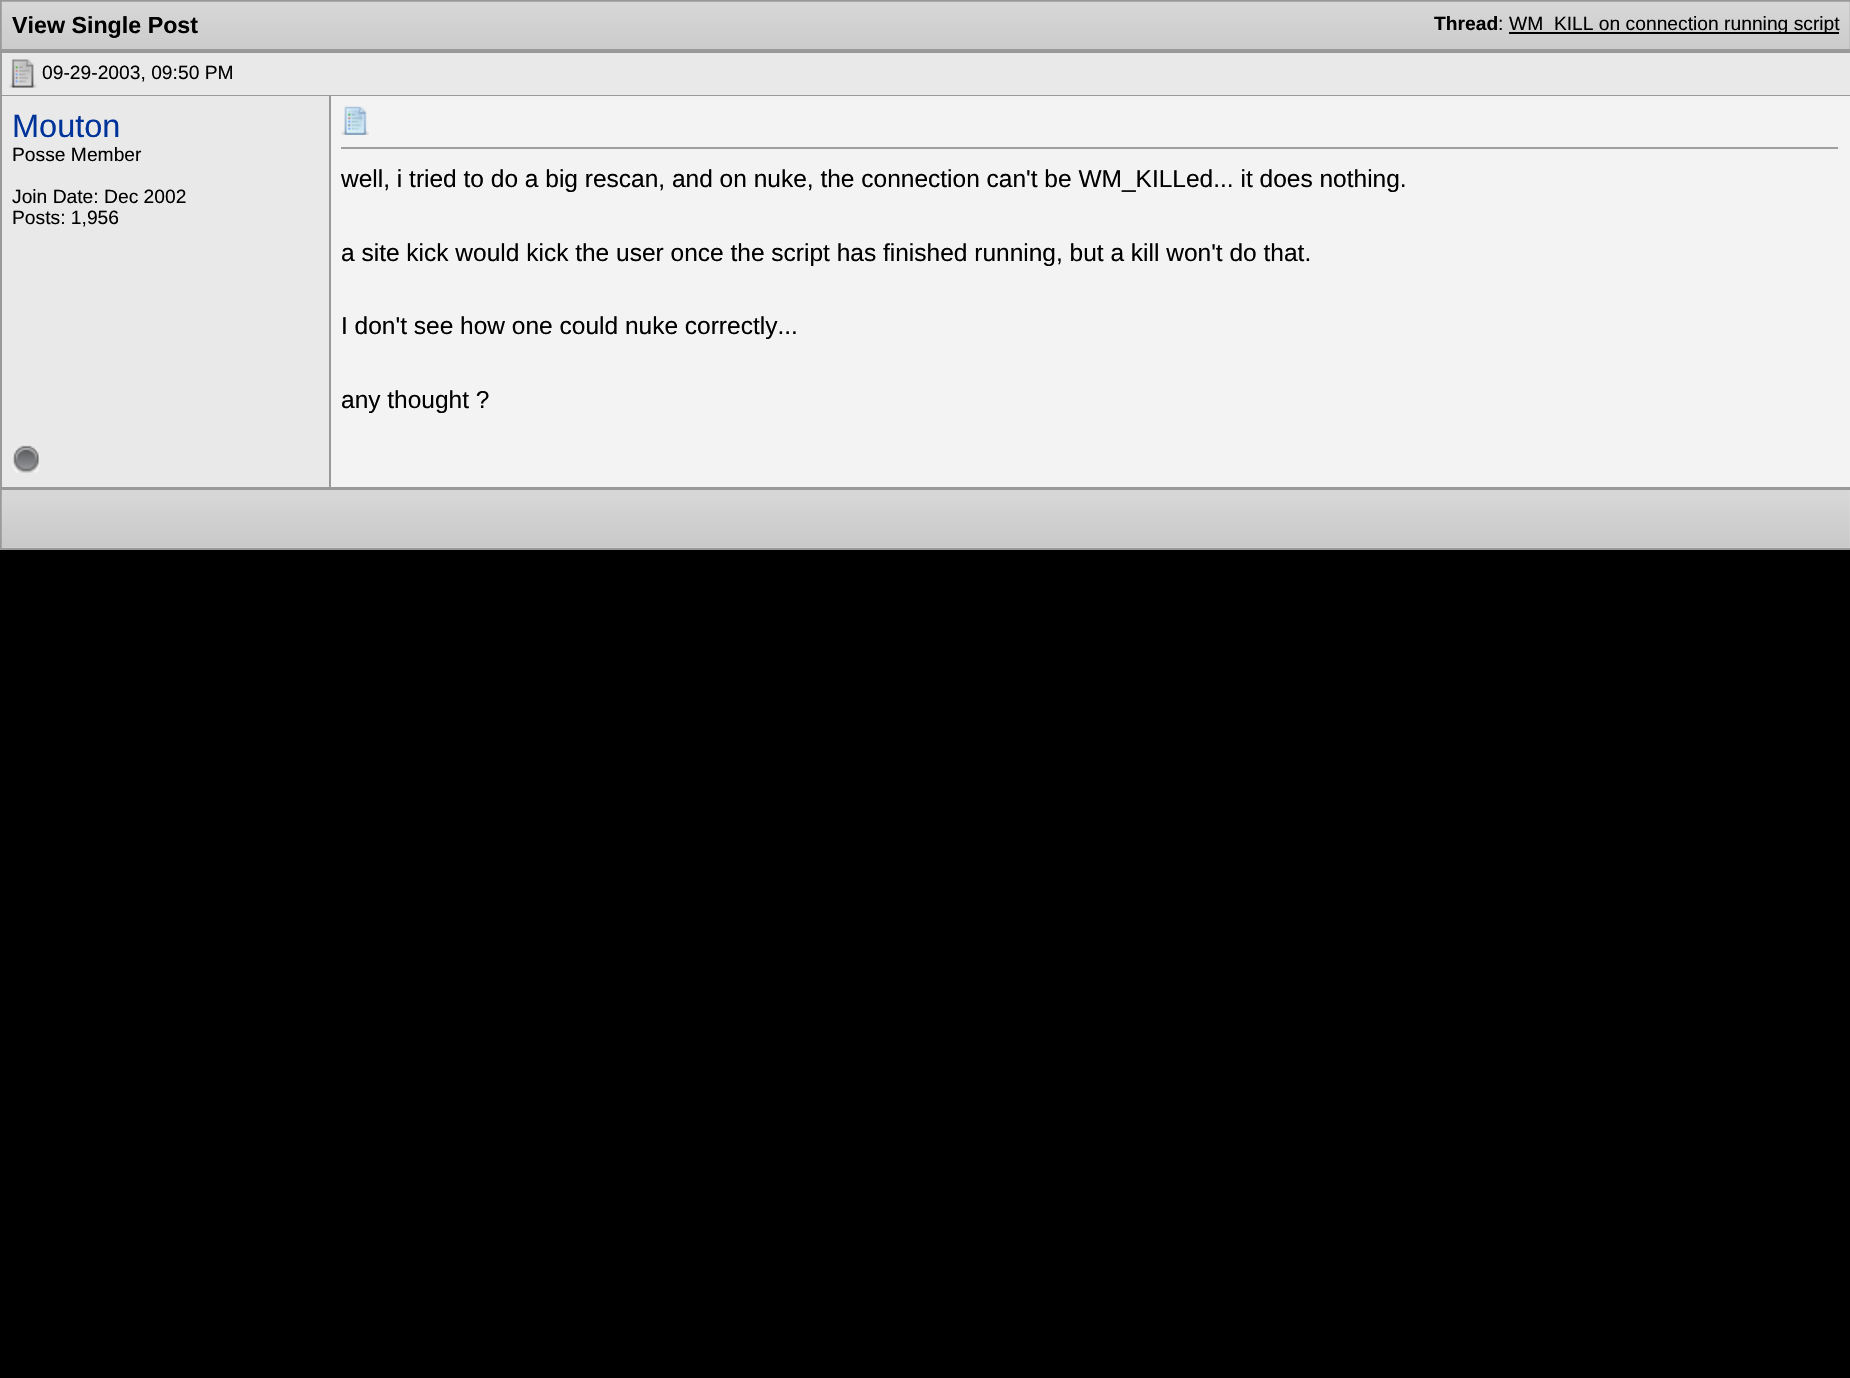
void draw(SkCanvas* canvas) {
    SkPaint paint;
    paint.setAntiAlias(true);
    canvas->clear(0xFF000000);
    paint.setColor(0xFF999999);
    canvas->drawRect(SkRect::MakeXYWH(0, 0, 1850, 51), paint);
    canvas->drawImageRect(SkImages::DeferredFromEncodedData(SkData::MakeFromFileName("img1.png")), SkRect::MakeXYWH(1, 1, 1849, 48), SkSamplingOptions());
    SkFont font1(fontMgr->matchFamilyStyle("Liberation Sans", SkFontStyle::Bold()), 23.25f);
    font1.setSubpixel(true);
    paint.setColor(0xFF000000);
    canvas->drawString("View Single Post", 12, 33, font1, paint);
    SkFont font2(fontMgr->matchFamilyStyle("Liberation Sans", SkFontStyle::Bold()), 19.25f);
    font2.setSubpixel(true);
    canvas->drawString("Thread", 1434, 30, font2, paint);
    SkFont font3(fontMgr->matchFamilyStyle("Liberation Sans", SkFontStyle::Normal()), 19.25f);
    font3.setSubpixel(true);
    canvas->drawString(":", 1498, 30, font3, paint);
    canvas->drawRect(SkRect::MakeXYWH(1509, 32, 330, 2), paint);
    canvas->drawString("WM_KILL on connection running script", 1509, 30, font3, paint);
    paint.setColor(0xFFE9E9E9);
    canvas->drawRect(SkRect::MakeXYWH(2, 53, 1848, 42), paint);
    paint.setColor(0xFF999999);
    canvas->drawRect(SkRect::MakeXYWH(0, 51, 1850, 2), paint);
    canvas->drawRect(SkRect::MakeXYWH(0, 95, 1850, 1), paint);
    canvas->drawRect(SkRect::MakeXYWH(0, 51, 2, 378), paint);
    canvas->drawImageRect(SkImages::DeferredFromEncodedData(SkData::MakeFromFileName("img2.png")), SkRect::MakeXYWH(9, 59, 28, 29), SkSamplingOptions());
    paint.setColor(0xFF000000);
    canvas->drawString("09-29-2003, 09:50 PM", 42, 79, font3, paint);
    paint.setColor(0xFFE9E9E9);
    canvas->drawRect(SkRect::MakeXYWH(2, 96, 327, 391), paint);
    paint.setColor(0xFF999999);
    canvas->drawRect(SkRect::MakeXYWH(329, 96, 2, 392), paint);
    SkFont font4(fontMgr->matchFamilyStyle("Liberation Sans", SkFontStyle::Normal()), 32.5f);
    font4.setSubpixel(true);
    paint.setColor(0xFF003399);
    canvas->drawString("Mouton", 12, 137, font4, paint);
    paint.setColor(0xFF000000);
    canvas->drawString("Posse Member", 12, 161, font3, paint);
    canvas->drawString("Join Date: Dec 2002", 12, 203, font3, paint);
    canvas->drawString("Posts: 1,956", 12, 224, font3, paint);
    paint.setColor(0xFFF3F3F3);
    canvas->drawRect(SkRect::MakeXYWH(331, 96, 1519, 391), paint);
    canvas->drawImageRect(SkImages::DeferredFromEncodedData(SkData::MakeFromFileName("img3.png")), SkRect::MakeXYWH(341, 106, 28, 29), SkSamplingOptions());
    paint.setColor(0xFF9F9F9F);
    canvas->drawRect(SkRect::MakeXYWH(341, 147, 1498, 2), paint);
    paint.setColor(0xFFEEEEEE);
    canvas->drawRect(SkRect::MakeXYWH(1838, 147, 2, 2), paint);
    SkFont font5(fontMgr->matchFamilyStyle("Liberation Sans", SkFontStyle::Normal()), 24.5f);
    font5.setSubpixel(true);
    paint.setColor(0xFF000000);
    canvas->drawString("well, i tried to do a big rescan, and on nuke, the connection can't be WM_KILLed... it does nothing.", 341, 187, font5, paint);
    canvas->drawString("a site kick would kick the user once the script has finished running, but a kill won't do that.", 341, 261, font5, paint);
    canvas->drawString("I don't see how one could nuke correctly...", 341, 334, font5, paint);
    canvas->drawString("any thought ?", 341, 408, font5, paint);
    paint.setColor(0xFF999999);
    canvas->drawRect(SkRect::MakeXYWH(0, 487, 1850, 63), paint);
    canvas->drawRect(SkRect::MakeXYWH(0, 429, 2, 59), paint);
    canvas->drawImageRect(SkImages::DeferredFromEncodedData(SkData::MakeFromFileName("img4.png")), SkRect::MakeXYWH(12, 445, 29, 28), SkSamplingOptions());
    paint.setColor(0xFFE1E1E2);
    canvas->drawRect(SkRect::MakeXYWH(2, 490, 1848, 58), paint);
    canvas->drawImageRect(SkImages::DeferredFromEncodedData(SkData::MakeFromFileName("img5.png")), SkRect::MakeXYWH(1, 490, 1849, 58), SkSamplingOptions());
}
